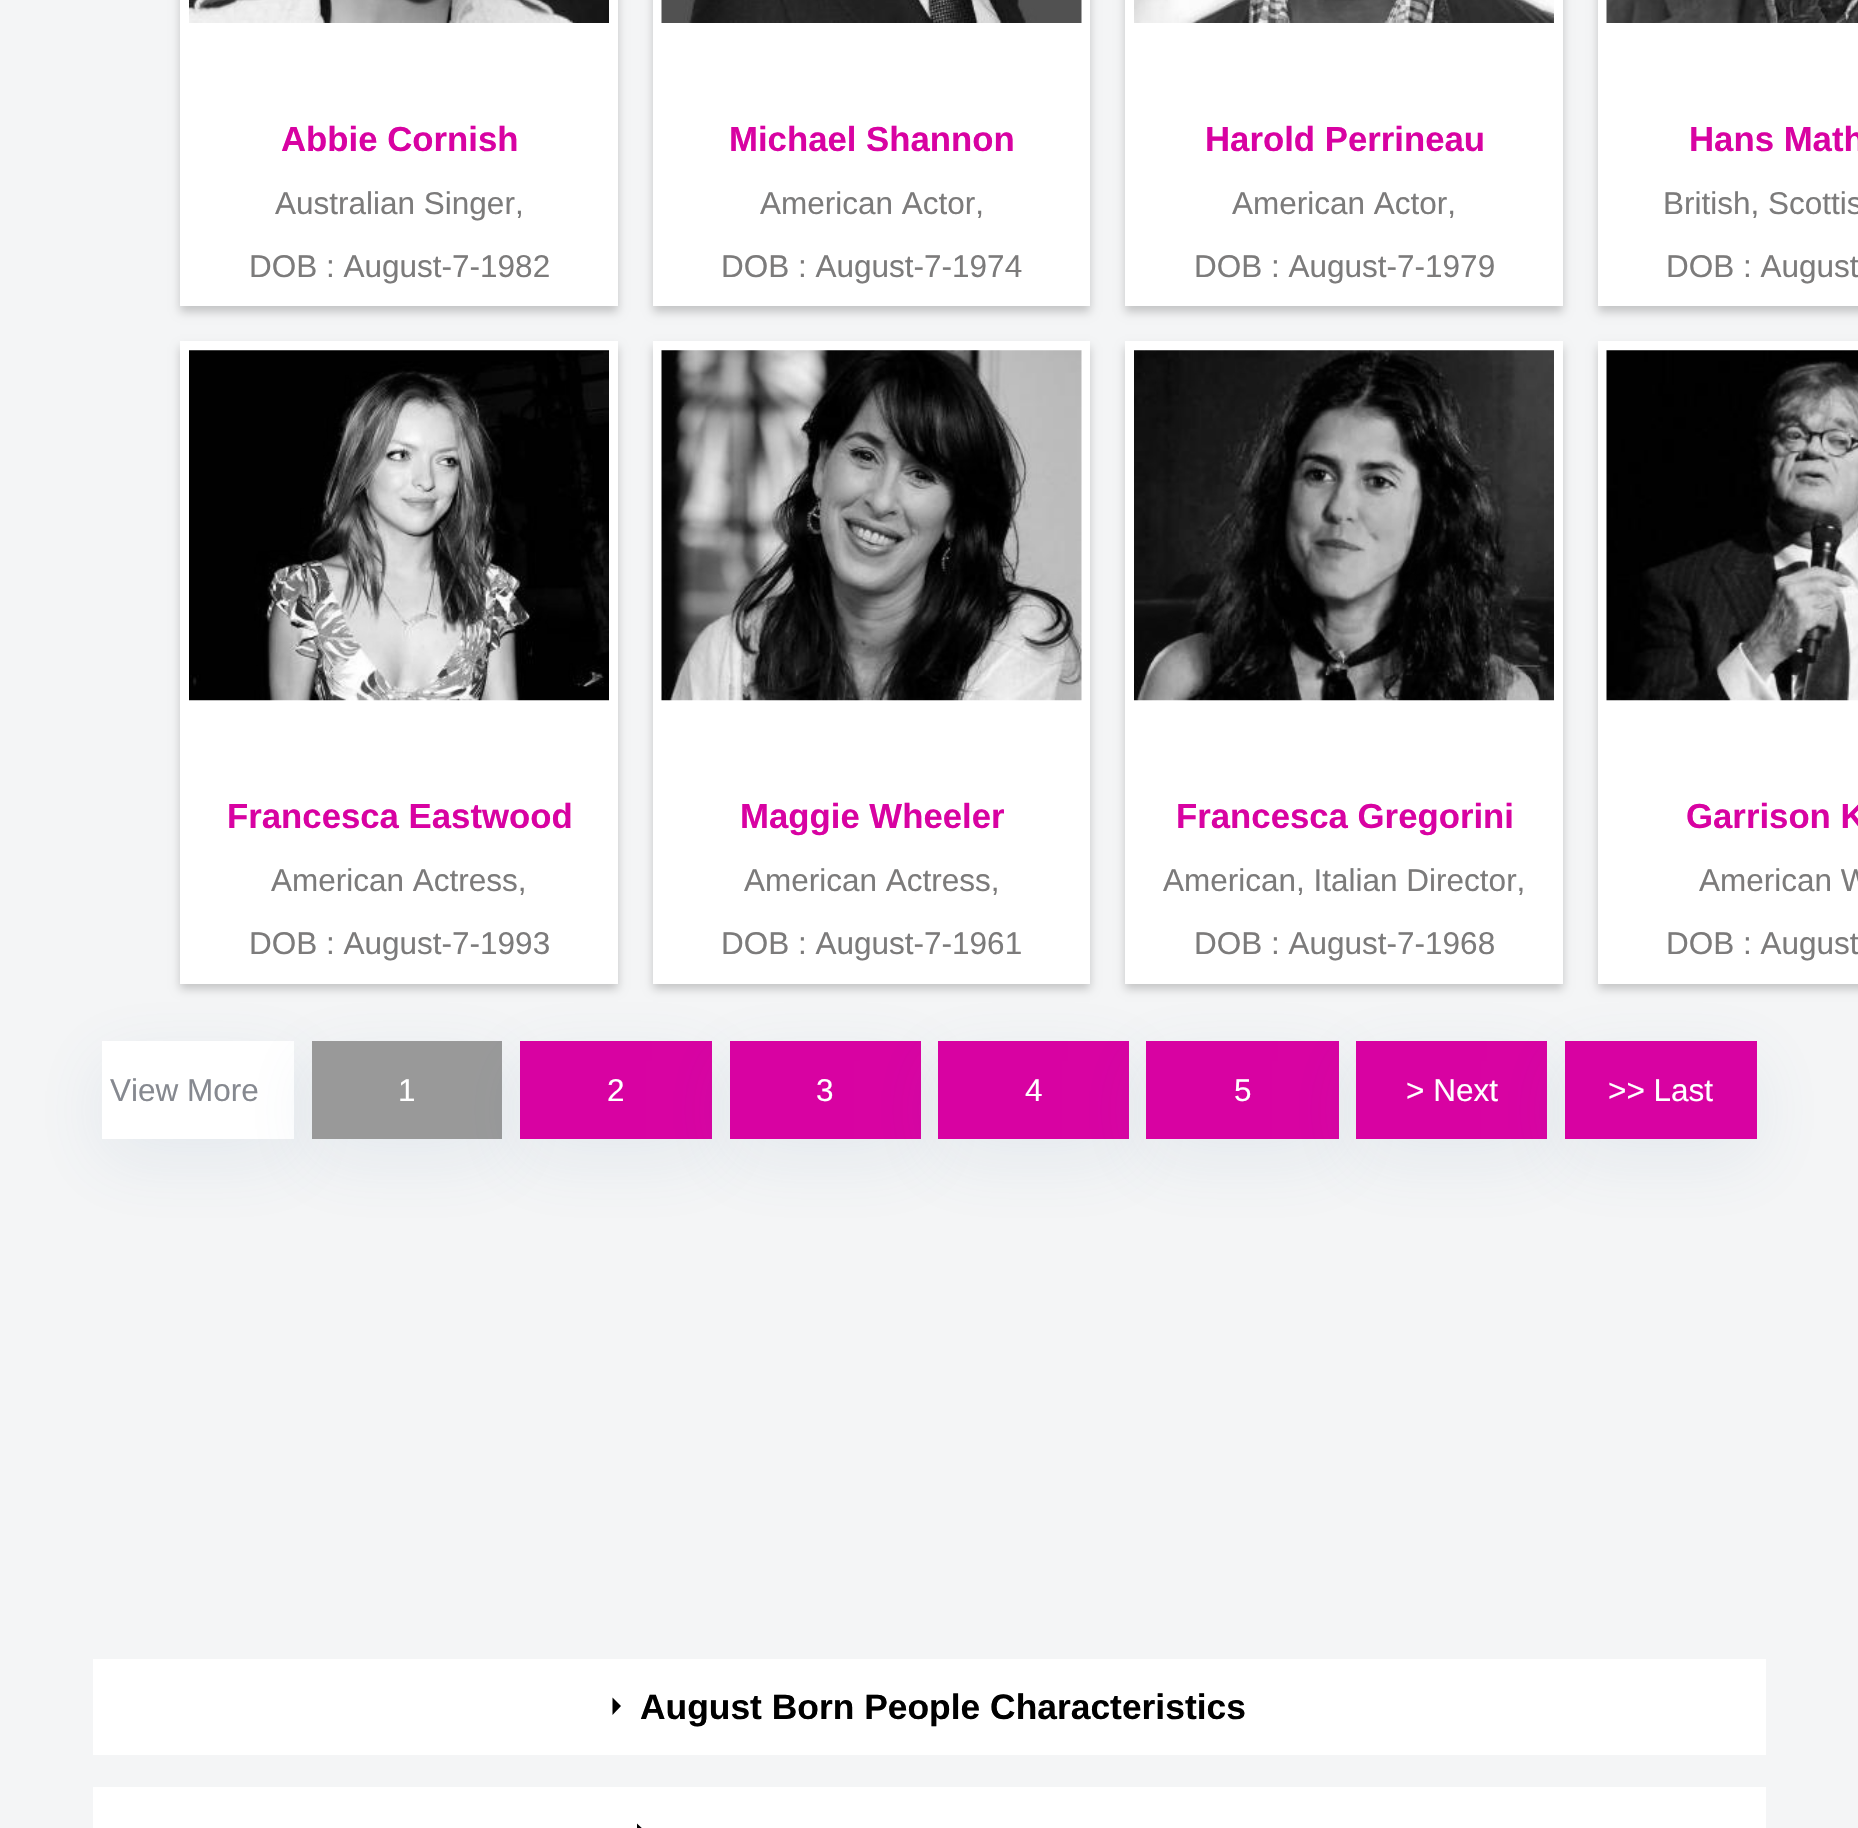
void draw(SkCanvas* canvas) {
    SkPaint paint;
    paint.setAntiAlias(true);
    canvas->clear(0xFFF4F5F6);
    paint.setColor(0x33000000);
    paint.setMaskFilter(SkMaskFilter::MakeBlur(kNormal_SkBlurStyle, 4.5f));
    canvas->drawRect(SkRect::MakeXYWH(180, -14, 438, 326), paint);
    paint.setMaskFilter(nullptr);
    paint.setColor(0xFFFFFFFF);
    canvas->drawRect(SkRect::MakeXYWH(180, 0, 438, 306), paint);
    canvas->drawImageRect(SkImages::DeferredFromEncodedData(SkData::MakeFromFileName("img1.png")), SkRect::MakeXYWH(189, 0, 420, 23), SkSamplingOptions());
    SkFont font1(fontMgr->matchFamilyStyle("Liberation Sans", SkFontStyle::Bold()), 34.75f);
    font1.setSubpixel(true);
    paint.setColor(0xFFD802A2);
    canvas->drawString("Abbie Cornish", 281, 151, font1, paint);
    SkFont font2(fontMgr->matchFamilyStyle("Liberation Sans", SkFontStyle::Normal()), 31.5f);
    font2.setSubpixel(true);
    paint.setColor(0xFF7C7B7B);
    canvas->drawString("Australian Singer,", 275, 214, font2, paint);
    canvas->drawString("DOB : August-7-1982", 249, 277, font2, paint);
    paint.setColor(0x33000000);
    paint.setMaskFilter(SkMaskFilter::MakeBlur(kNormal_SkBlurStyle, 4.5f));
    canvas->drawRect(SkRect::MakeXYWH(653, -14, 437, 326), paint);
    paint.setMaskFilter(nullptr);
    paint.setColor(0xFFFFFFFF);
    canvas->drawRect(SkRect::MakeXYWH(653, 0, 437, 306), paint);
    canvas->drawImageRect(SkImages::DeferredFromEncodedData(SkData::MakeFromFileName("img2.png")), SkRect::MakeXYWH(661, 0, 421, 23), SkSamplingOptions());
    paint.setColor(0xFFD802A2);
    canvas->drawString("Michael Shannon", 729, 151, font1, paint);
    paint.setColor(0xFF7C7B7B);
    canvas->drawString("American Actor,", 760, 214, font2, paint);
    canvas->drawString("DOB : August-7-1974", 721, 277, font2, paint);
    paint.setColor(0x33000000);
    paint.setMaskFilter(SkMaskFilter::MakeBlur(kNormal_SkBlurStyle, 4.5f));
    canvas->drawRect(SkRect::MakeXYWH(1125, -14, 438, 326), paint);
    paint.setMaskFilter(nullptr);
    paint.setColor(0xFFFFFFFF);
    canvas->drawRect(SkRect::MakeXYWH(1125, 0, 438, 306), paint);
    canvas->drawImageRect(SkImages::DeferredFromEncodedData(SkData::MakeFromFileName("img3.png")), SkRect::MakeXYWH(1134, 0, 420, 23), SkSamplingOptions());
    paint.setColor(0xFFD802A2);
    canvas->drawString("Harold Perrineau", 1205, 151, font1, paint);
    paint.setColor(0xFF7C7B7B);
    canvas->drawString("American Actor,", 1232, 214, font2, paint);
    canvas->drawString("DOB : August-7-1979", 1194, 277, font2, paint);
    paint.setColor(0x33000000);
    paint.setMaskFilter(SkMaskFilter::MakeBlur(kNormal_SkBlurStyle, 4.5f));
    canvas->drawRect(SkRect::MakeXYWH(1598, -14, 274, 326), paint);
    paint.setMaskFilter(nullptr);
    paint.setColor(0xFFFFFFFF);
    canvas->drawRect(SkRect::MakeXYWH(1598, 0, 260, 306), paint);
    canvas->drawImageRect(SkImages::DeferredFromEncodedData(SkData::MakeFromFileName("img4.png")), SkRect::MakeXYWH(1606, 0, 252, 23), SkSamplingOptions());
    paint.setColor(0xFFD802A2);
    canvas->drawString("Hans Math", 1689, 151, font1, paint);
    paint.setColor(0xFF7C7B7B);
    canvas->drawString("British, Scottis", 1663, 214, font2, paint);
    canvas->drawString("DOB : August", 1666, 277, font2, paint);
    paint.setColor(0x33000000);
    paint.setMaskFilter(SkMaskFilter::MakeBlur(kNormal_SkBlurStyle, 4.5f));
    canvas->drawRect(SkRect::MakeXYWH(180, 347, 438, 642), paint);
    paint.setMaskFilter(nullptr);
    paint.setColor(0xFFFFFFFF);
    canvas->drawRect(SkRect::MakeXYWH(180, 341, 438, 643), paint);
    canvas->drawImageRect(SkImages::DeferredFromEncodedData(SkData::MakeFromFileName("img5.png")), SkRect::MakeXYWH(189, 350, 420, 351), SkSamplingOptions());
    paint.setColor(0xFFD802A2);
    canvas->drawString("Francesca Eastwood", 227, 828, font1, paint);
    paint.setColor(0xFF7C7B7B);
    canvas->drawString("American Actress,", 271, 891, font2, paint);
    canvas->drawString("DOB : August-7-1993", 249, 954, font2, paint);
    paint.setColor(0x33000000);
    paint.setMaskFilter(SkMaskFilter::MakeBlur(kNormal_SkBlurStyle, 4.5f));
    canvas->drawRect(SkRect::MakeXYWH(653, 347, 437, 642), paint);
    paint.setMaskFilter(nullptr);
    paint.setColor(0xFFFFFFFF);
    canvas->drawRect(SkRect::MakeXYWH(653, 341, 437, 643), paint);
    canvas->drawImageRect(SkImages::DeferredFromEncodedData(SkData::MakeFromFileName("img6.png")), SkRect::MakeXYWH(661, 350, 421, 351), SkSamplingOptions());
    paint.setColor(0xFFD802A2);
    canvas->drawString("Maggie Wheeler", 740, 828, font1, paint);
    paint.setColor(0xFF7C7B7B);
    canvas->drawString("American Actress,", 744, 891, font2, paint);
    canvas->drawString("DOB : August-7-1961", 721, 954, font2, paint);
    paint.setColor(0x33000000);
    paint.setMaskFilter(SkMaskFilter::MakeBlur(kNormal_SkBlurStyle, 4.5f));
    canvas->drawRect(SkRect::MakeXYWH(1125, 347, 438, 642), paint);
    paint.setMaskFilter(nullptr);
    paint.setColor(0xFFFFFFFF);
    canvas->drawRect(SkRect::MakeXYWH(1125, 341, 438, 643), paint);
    canvas->drawImageRect(SkImages::DeferredFromEncodedData(SkData::MakeFromFileName("img7.png")), SkRect::MakeXYWH(1134, 350, 420, 351), SkSamplingOptions());
    paint.setColor(0xFFD802A2);
    canvas->drawString("Francesca Gregorini", 1176, 828, font1, paint);
    paint.setColor(0xFF7C7B7B);
    canvas->drawString("American, Italian Director,", 1163, 891, font2, paint);
    canvas->drawString("DOB : August-7-1968", 1194, 954, font2, paint);
    paint.setColor(0x33000000);
    paint.setMaskFilter(SkMaskFilter::MakeBlur(kNormal_SkBlurStyle, 4.5f));
    canvas->drawRect(SkRect::MakeXYWH(1598, 347, 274, 642), paint);
    paint.setMaskFilter(nullptr);
    paint.setColor(0xFFFFFFFF);
    canvas->drawRect(SkRect::MakeXYWH(1598, 341, 260, 643), paint);
    canvas->drawImageRect(SkImages::DeferredFromEncodedData(SkData::MakeFromFileName("img8.png")), SkRect::MakeXYWH(1606, 350, 252, 351), SkSamplingOptions());
    paint.setColor(0xFFD802A2);
    canvas->drawString("Garrison K", 1686, 828, font1, paint);
    paint.setColor(0xFF7C7B7B);
    canvas->drawString("American W", 1699, 891, font2, paint);
    canvas->drawString("DOB : August", 1666, 954, font2, paint);
    paint.setColor(0x1A4F769D);
    paint.setMaskFilter(SkMaskFilter::MakeBlur(kNormal_SkBlurStyle, 35));
    canvas->drawRect(SkRect::MakeXYWH(102, 1061, 192, 98), paint);
    paint.setMaskFilter(nullptr);
    paint.setColor(0xFFFFFFFF);
    canvas->drawRect(SkRect::MakeXYWH(102, 1041, 192, 98), paint);
    paint.setColor(0xFF868990);
    canvas->drawString("View More", 110, 1101, font2, paint);
    paint.setColor(0x1A4F769D);
    paint.setMaskFilter(SkMaskFilter::MakeBlur(kNormal_SkBlurStyle, 35));
    canvas->drawRect(SkRect::MakeXYWH(312, 1061, 190, 98), paint);
    paint.setMaskFilter(nullptr);
    paint.setColor(0xFF999999);
    canvas->drawRect(SkRect::MakeXYWH(312, 1041, 190, 98), paint);
    paint.setColor(0xFFFFFFFF);
    canvas->drawString("1", 398, 1101, font2, paint);
    paint.setColor(0x1A4F769D);
    paint.setMaskFilter(SkMaskFilter::MakeBlur(kNormal_SkBlurStyle, 35));
    canvas->drawRect(SkRect::MakeXYWH(520, 1061, 192, 98), paint);
    paint.setMaskFilter(nullptr);
    paint.setColor(0xFFD802A2);
    canvas->drawRect(SkRect::MakeXYWH(520, 1041, 192, 98), paint);
    paint.setColor(0xFFFFFFFF);
    canvas->drawString("2", 607, 1101, font2, paint);
    paint.setColor(0x1A4F769D);
    paint.setMaskFilter(SkMaskFilter::MakeBlur(kNormal_SkBlurStyle, 35));
    canvas->drawRect(SkRect::MakeXYWH(730, 1061, 191, 98), paint);
    paint.setMaskFilter(nullptr);
    paint.setColor(0xFFD802A2);
    canvas->drawRect(SkRect::MakeXYWH(730, 1041, 191, 98), paint);
    paint.setColor(0xFFFFFFFF);
    canvas->drawString("3", 816, 1101, font2, paint);
    paint.setColor(0x1A4F769D);
    paint.setMaskFilter(SkMaskFilter::MakeBlur(kNormal_SkBlurStyle, 35));
    canvas->drawRect(SkRect::MakeXYWH(938, 1061, 191, 98), paint);
    paint.setMaskFilter(nullptr);
    paint.setColor(0xFFD802A2);
    canvas->drawRect(SkRect::MakeXYWH(938, 1041, 191, 98), paint);
    paint.setColor(0xFFFFFFFF);
    canvas->drawString("4", 1025, 1101, font2, paint);
    paint.setColor(0x1A4F769D);
    paint.setMaskFilter(SkMaskFilter::MakeBlur(kNormal_SkBlurStyle, 35));
    canvas->drawRect(SkRect::MakeXYWH(1146, 1061, 193, 98), paint);
    paint.setMaskFilter(nullptr);
    paint.setColor(0xFFD802A2);
    canvas->drawRect(SkRect::MakeXYWH(1146, 1041, 193, 98), paint);
    paint.setColor(0xFFFFFFFF);
    canvas->drawString("5", 1234, 1101, font2, paint);
    paint.setColor(0x1A4F769D);
    paint.setMaskFilter(SkMaskFilter::MakeBlur(kNormal_SkBlurStyle, 35));
    canvas->drawRect(SkRect::MakeXYWH(1356, 1061, 191, 98), paint);
    paint.setMaskFilter(nullptr);
    paint.setColor(0xFFD802A2);
    canvas->drawRect(SkRect::MakeXYWH(1356, 1041, 191, 98), paint);
    paint.setColor(0xFFFFFFFF);
    canvas->drawString("> Next", 1406, 1101, font2, paint);
    paint.setColor(0x1A4F769D);
    paint.setMaskFilter(SkMaskFilter::MakeBlur(kNormal_SkBlurStyle, 35));
    canvas->drawRect(SkRect::MakeXYWH(1565, 1061, 192, 98), paint);
    paint.setMaskFilter(nullptr);
    paint.setColor(0xFFD802A2);
    canvas->drawRect(SkRect::MakeXYWH(1565, 1041, 192, 98), paint);
    paint.setColor(0xFFFFFFFF);
    canvas->drawString(">> Last", 1608, 1101, font2, paint);
    canvas->drawRect(SkRect::MakeXYWH(93, 1659, 1673, 96), paint);
    paint.setColor(0xFF000000);
    canvas->drawPath(SkPathBuilder().moveTo(612.5f, 1715).lineTo(612.5f, 1697.5f).lineTo(621, 1706).close().detach(), paint);
    SkFont font3(fontMgr->matchFamilyStyle("Liberation Sans", SkFontStyle::Bold()), 35.4f);
    font3.setSubpixel(true);
    canvas->drawString("August Born People Characteristics", 640, 1719, font3, paint);
    paint.setColor(0xFFFFFFFF);
    canvas->drawRect(SkRect::MakeXYWH(93, 1787, 1673, 41), paint);
    paint.setColor(0xFF000000);
    canvas->drawPath(SkPathBuilder().moveTo(637, 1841).lineTo(637, 1823.5f).lineTo(646, 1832).close().detach(), paint);
}
